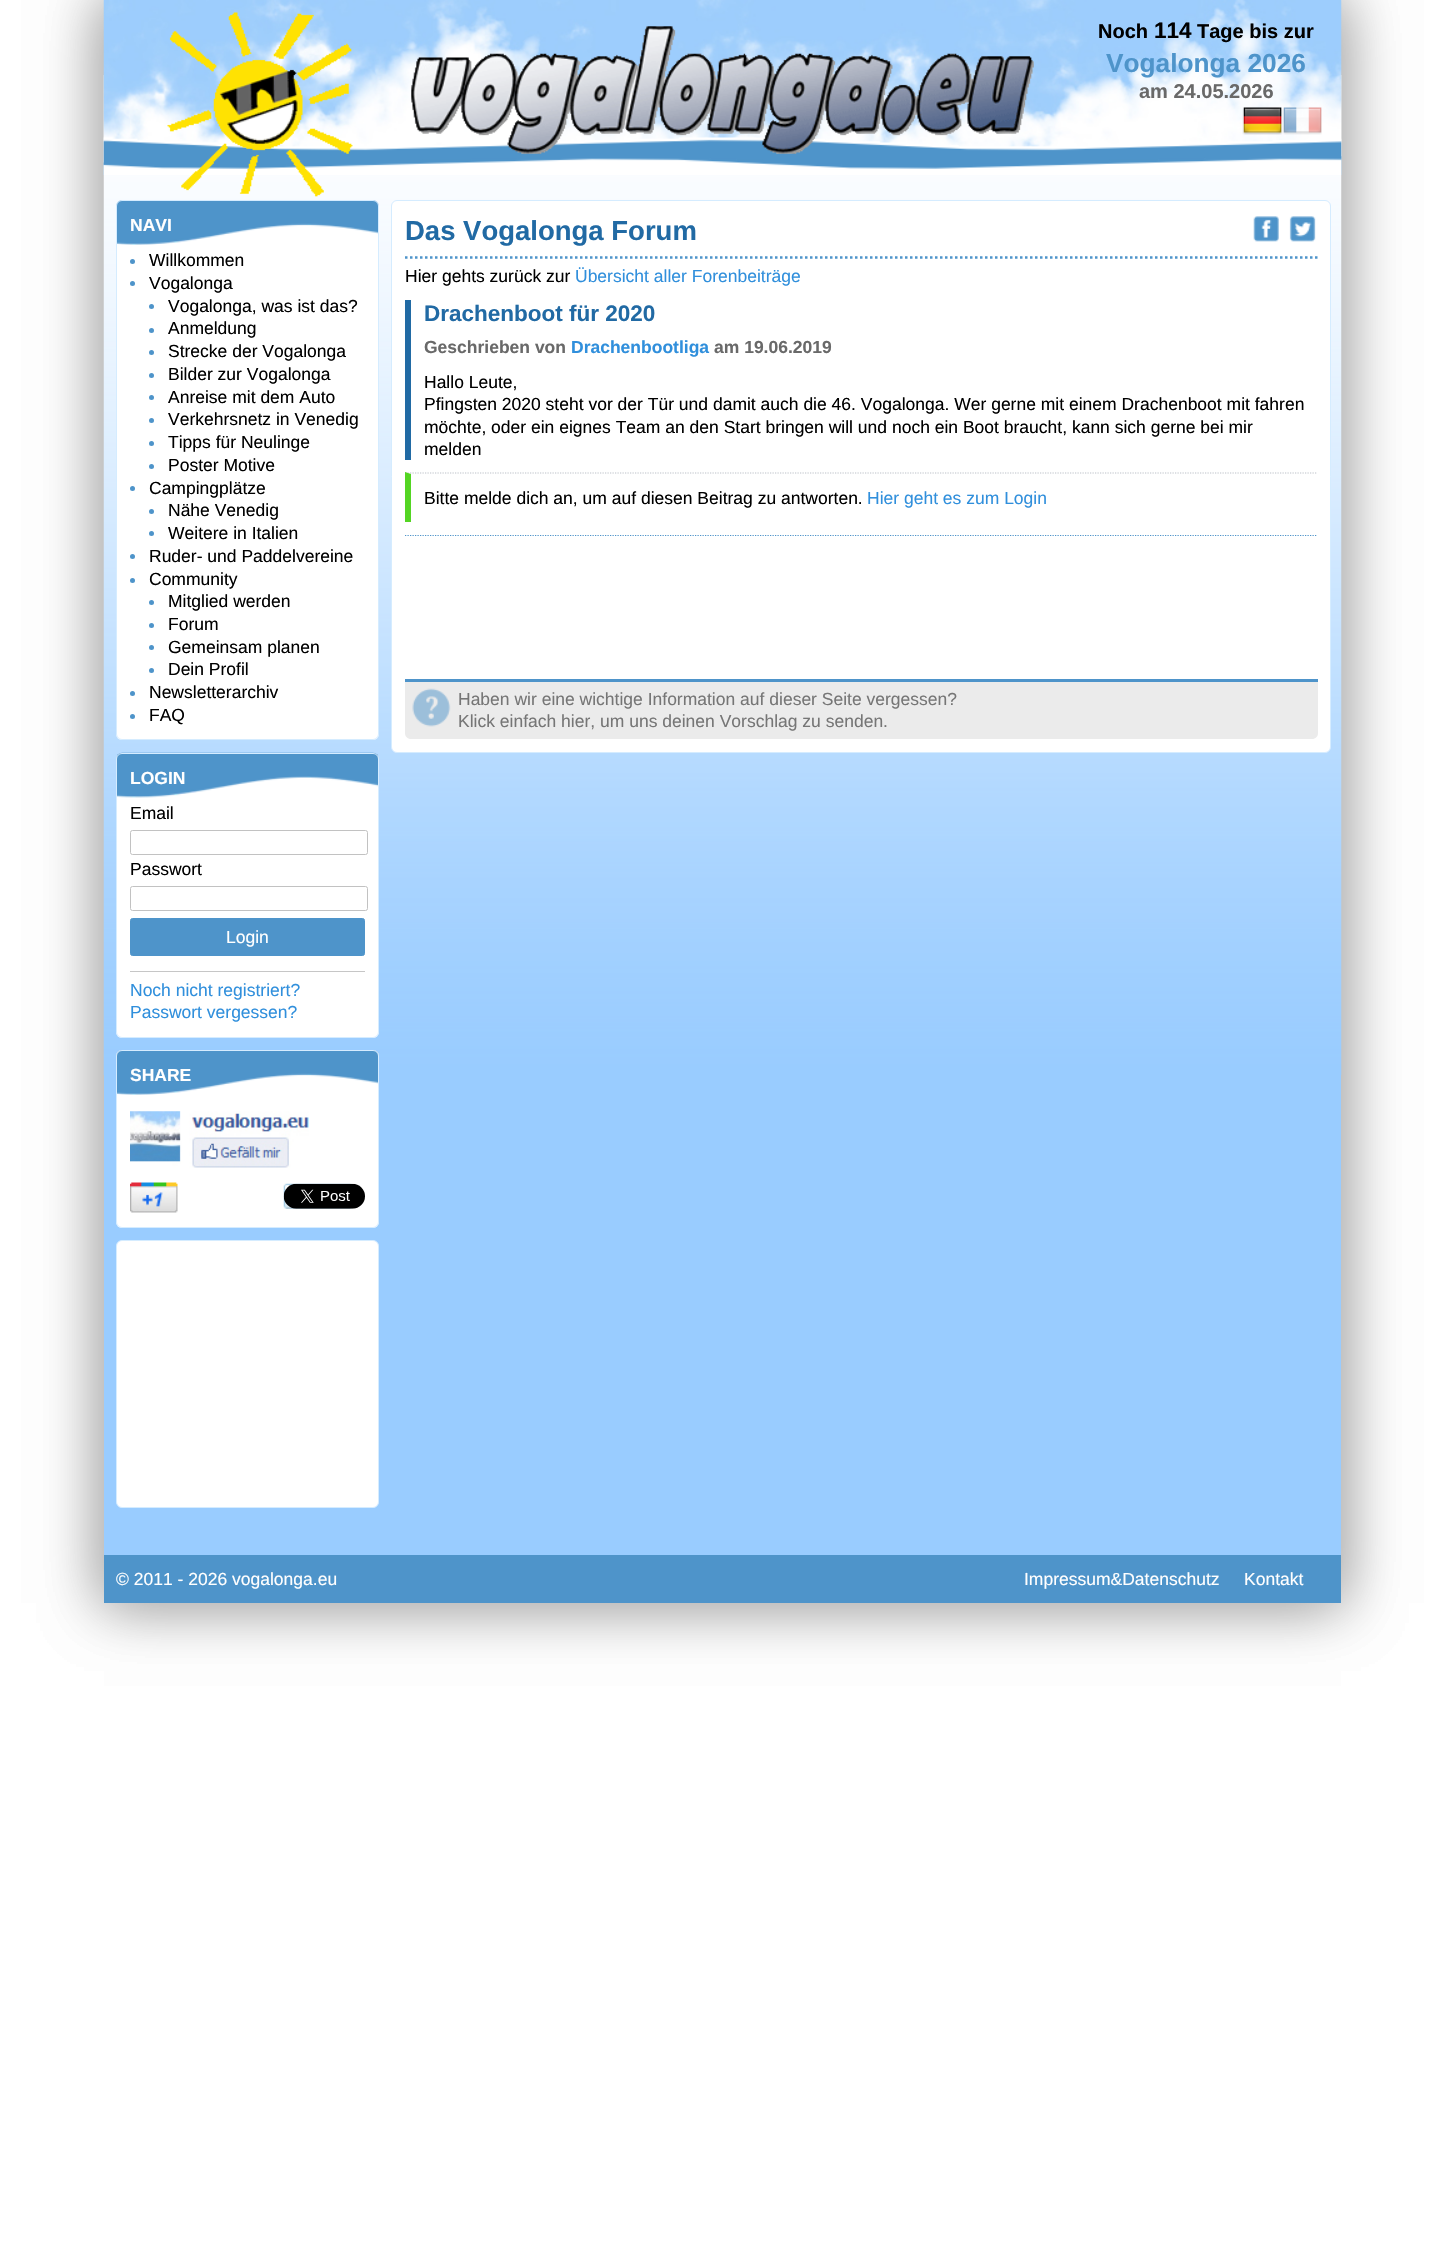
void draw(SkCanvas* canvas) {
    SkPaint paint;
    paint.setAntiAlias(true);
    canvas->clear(0xFFFFFFFF);
    paint.setColor(0xFFB0B0B0);
    paint.setMaskFilter(SkMaskFilter::MakeBlur(kNormal_SkBlurStyle, 28));
    canvas->drawRect(SkRect::MakeXYWH(104, 0, 1237, 1603), paint);
    paint.setMaskFilter(nullptr);
    paint.setMaskFilter(SkMaskFilter::MakeBlur(kNormal_SkBlurStyle, 28));
    canvas->drawRect(SkRect::MakeXYWH(104, 0, 1237, 1603), paint);
    paint.setMaskFilter(nullptr);
    paint.setColor(0xFF99CCFF);
    canvas->drawRect(SkRect::MakeXYWH(104, 1075, 1237, 480), paint);
    canvas->drawImageRect(SkImages::DeferredFromEncodedData(SkData::MakeFromFileName("img1.png")), SkRect::MakeXYWH(103, 75, 1239, 1000), SkSamplingOptions());
    canvas->drawImageRect(SkImages::DeferredFromEncodedData(SkData::MakeFromFileName("img2.png")), SkRect::MakeXYWH(103, 0, 1239, 175), SkSamplingOptions());
    canvas->drawImageRect(SkImages::DeferredFromEncodedData(SkData::MakeFromFileName("img5.png")), SkRect::MakeXYWH(103, 137, 1239, 38), SkSamplingOptions());
    canvas->drawImageRect(SkImages::DeferredFromEncodedData(SkData::MakeFromFileName("img6.png")), SkRect::MakeXYWH(103, 156, 1239, 19), SkSamplingOptions());
    canvas->drawImageRect(SkImages::DeferredFromEncodedData(SkData::MakeFromFileName("img3.png")), SkRect::MakeXYWH(167, 12, 186, 185), SkSamplingOptions());
    canvas->drawImageRect(SkImages::DeferredFromEncodedData(SkData::MakeFromFileName("img4.png")), SkRect::MakeXYWH(411, 26, 623, 128), SkSamplingOptions());
    SkFont font1(fontMgr->matchFamilyStyle("Liberation Sans", SkFontStyle::Bold()), 20);
    font1.setSubpixel(true);
    paint.setColor(0xFF000000);
    canvas->drawString("Noch", 1098, 38, font1, paint);
    SkFont font2(fontMgr->matchFamilyStyle("Liberation Sans", SkFontStyle::Bold()), 22.5f);
    font2.setSubpixel(true);
    canvas->drawString("114", 1154, 38, font2, paint);
    canvas->drawString("Tage bis zur", 1197, 38, font1, paint);
    SkFont font3(fontMgr->matchFamilyStyle("Liberation Sans", SkFontStyle::Bold()), 26.25f);
    font3.setSubpixel(true);
    paint.setColor(0xFF4E94CA);
    canvas->drawString("Vogalonga 2026", 1106, 72, font3, paint);
    paint.setColor(0xFF696969);
    canvas->drawString("am 24.05.2026", 1139, 98, font1, paint);
    canvas->drawImageRect(SkImages::DeferredFromEncodedData(SkData::MakeFromFileName("img7.png")), SkRect::MakeXYWH(1242, 107, 41, 28), SkSamplingOptions());
    canvas->drawImageRect(SkImages::DeferredFromEncodedData(SkData::MakeFromFileName("img8.png")), SkRect::MakeXYWH(1283, 107, 39, 28), SkSamplingOptions());
    paint.setColor(0xFFFFFFFF);
    canvas->drawRoundRect(SkRect::MakeXYWH(116, 200, 263, 540), 6, 6, paint);
    canvas->drawImageRect(SkImages::DeferredFromEncodedData(SkData::MakeFromFileName("img9.png")), SkRect::MakeXYWH(116, 200, 263, 45), SkSamplingOptions());
    paint.setStyle(SkPaint::kStroke_Style);
    paint.setStrokeWidth(1);
    paint.setColor(0xFFD5ECFF);
    canvas->drawRoundRect(SkRect::MakeXYWH(116.5f, 200.5f, 262, 539), 5.5f, 5.5f, paint);
    SkFont font4(fontMgr->matchFamilyStyle("Liberation Sans", SkFontStyle::Bold()), 17.5f);
    font4.setSubpixel(true);
    paint.setStyle(SkPaint::kFill_Style);
    paint.setColor(0xFFFFFFFF);
    canvas->drawString("NAVI", 130, 231, font4, paint);
    paint.setColor(0xFF4E94CA);
    canvas->drawCircle(132.5f, 261.5f, 2.5f, paint);
    SkFont font5(fontMgr->matchFamilyStyle("Liberation Sans", SkFontStyle::Normal()), 17.5f);
    font5.setSubpixel(true);
    paint.setColor(0xFF000000);
    canvas->drawString("Willkommen", 149, 266, font5, paint);
    paint.setColor(0xFF4E94CA);
    canvas->drawCircle(132.5f, 283.5f, 2.5f, paint);
    paint.setColor(0xFF000000);
    canvas->drawString("Vogalonga", 149, 289, font5, paint);
    paint.setColor(0xFF4E94CA);
    canvas->drawCircle(151.5f, 306.5f, 2.5f, paint);
    paint.setColor(0xFF000000);
    canvas->drawString("Vogalonga, was ist das?", 168, 312, font5, paint);
    paint.setColor(0xFF4E94CA);
    canvas->drawCircle(151.5f, 330.5f, 2.5f, paint);
    paint.setColor(0xFF000000);
    canvas->drawString("Anmeldung", 168, 334, font5, paint);
    paint.setColor(0xFF4E94CA);
    canvas->drawCircle(151.5f, 352.5f, 2.5f, paint);
    paint.setColor(0xFF000000);
    canvas->drawString("Strecke der Vogalonga", 168, 357, font5, paint);
    paint.setColor(0xFF4E94CA);
    canvas->drawCircle(151.5f, 375.5f, 2.5f, paint);
    paint.setColor(0xFF000000);
    canvas->drawString("Bilder zur Vogalonga", 168, 380, font5, paint);
    paint.setColor(0xFF4E94CA);
    canvas->drawCircle(151.5f, 397.5f, 2.5f, paint);
    paint.setColor(0xFF000000);
    canvas->drawString("Anreise mit dem Auto", 168, 403, font5, paint);
    paint.setColor(0xFF4E94CA);
    canvas->drawCircle(151.5f, 420.5f, 2.5f, paint);
    paint.setColor(0xFF000000);
    canvas->drawString("Verkehrsnetz in Venedig", 168, 425, font5, paint);
    paint.setColor(0xFF4E94CA);
    canvas->drawCircle(151.5f, 443.5f, 2.5f, paint);
    paint.setColor(0xFF000000);
    canvas->drawString("Tipps für Neulinge", 168, 448, font5, paint);
    paint.setColor(0xFF4E94CA);
    canvas->drawCircle(151.5f, 466.5f, 2.5f, paint);
    paint.setColor(0xFF000000);
    canvas->drawString("Poster Motive", 168, 471, font5, paint);
    paint.setColor(0xFF4E94CA);
    canvas->drawCircle(132.5f, 488.5f, 2.5f, paint);
    paint.setColor(0xFF000000);
    canvas->drawString("Campingplätze", 149, 494, font5, paint);
    paint.setColor(0xFF4E94CA);
    canvas->drawCircle(151.5f, 511.5f, 2.5f, paint);
    paint.setColor(0xFF000000);
    canvas->drawString("Nähe Venedig", 168, 516, font5, paint);
    paint.setColor(0xFF4E94CA);
    canvas->drawCircle(151.5f, 533.5f, 2.5f, paint);
    paint.setColor(0xFF000000);
    canvas->drawString("Weitere in Italien", 168, 539, font5, paint);
    paint.setColor(0xFF4E94CA);
    canvas->drawCircle(132.5f, 556.5f, 2.5f, paint);
    paint.setColor(0xFF000000);
    canvas->drawString("Ruder- und Paddelvereine", 149, 562, font5, paint);
    paint.setColor(0xFF4E94CA);
    canvas->drawCircle(132.5f, 580.5f, 2.5f, paint);
    paint.setColor(0xFF000000);
    canvas->drawString("Community", 149, 585, font5, paint);
    paint.setColor(0xFF4E94CA);
    canvas->drawCircle(151.5f, 602.5f, 2.5f, paint);
    paint.setColor(0xFF000000);
    canvas->drawString("Mitglied werden", 168, 607, font5, paint);
    paint.setColor(0xFF4E94CA);
    canvas->drawCircle(151.5f, 625.5f, 2.5f, paint);
    paint.setColor(0xFF000000);
    canvas->drawString("Forum", 168, 630, font5, paint);
    paint.setColor(0xFF4E94CA);
    canvas->drawCircle(151.5f, 647.5f, 2.5f, paint);
    paint.setColor(0xFF000000);
    canvas->drawString("Gemeinsam planen", 168, 653, font5, paint);
    paint.setColor(0xFF4E94CA);
    canvas->drawCircle(151.5f, 670.5f, 2.5f, paint);
    paint.setColor(0xFF000000);
    canvas->drawString("Dein Profil", 168, 675, font5, paint);
    paint.setColor(0xFF4E94CA);
    canvas->drawCircle(132.5f, 693.5f, 2.5f, paint);
    paint.setColor(0xFF000000);
    canvas->drawString("Newsletterarchiv", 149, 698, font5, paint);
    paint.setColor(0xFF4E94CA);
    canvas->drawCircle(132.5f, 716.5f, 2.5f, paint);
    paint.setColor(0xFF000000);
    canvas->drawString("FAQ", 149, 721, font5, paint);
    paint.setColor(0xFFFFFFFF);
    canvas->drawRoundRect(SkRect::MakeXYWH(116, 753, 263, 285), 6, 6, paint);
    canvas->drawImageRect(SkImages::DeferredFromEncodedData(SkData::MakeFromFileName("img10.png")), SkRect::MakeXYWH(116, 752, 263, 46), SkSamplingOptions());
    paint.setStyle(SkPaint::kStroke_Style);
    paint.setColor(0xFFD5ECFF);
    canvas->drawRoundRect(SkRect::MakeXYWH(116.5f, 753.5f, 262, 284), 5.5f, 5.5f, paint);
    paint.setStyle(SkPaint::kFill_Style);
    paint.setColor(0xFFFFFFFF);
    canvas->drawString("LOGIN", 130, 784, font4, paint);
    paint.setColor(0xFF000000);
    canvas->drawString("Email", 130, 819, font5, paint);
    paint.setStyle(SkPaint::kStroke_Style);
    paint.setColor(0xFFC2C2C2);
    canvas->drawRoundRect(SkRect::MakeXYWH(130.5f, 830.5f, 237, 24), 2, 2, paint);
    paint.setStyle(SkPaint::kFill_Style);
    paint.setColor(0xFF000000);
    canvas->drawString("Passwort", 130, 875, font5, paint);
    paint.setStyle(SkPaint::kStroke_Style);
    paint.setColor(0xFFC2C2C2);
    canvas->drawRoundRect(SkRect::MakeXYWH(130.5f, 886.5f, 237, 24), 2, 2, paint);
    paint.setStyle(SkPaint::kFill_Style);
    paint.setColor(0xFF4E94CA);
    canvas->drawRoundRect(SkRect::MakeXYWH(130.5f, 918.5f, 234, 37), 2, 2, paint);
    paint.setStyle(SkPaint::kStroke_Style);
    canvas->drawRoundRect(SkRect::MakeXYWH(130.5f, 918.5f, 234, 37), 2, 2, paint);
    paint.setStyle(SkPaint::kFill_Style);
    paint.setColor(0xFFFFFFFF);
    canvas->drawString("Login", 226, 943, font5, paint);
    paint.setColor(0xFFC6C6C6);
    canvas->drawRect(SkRect::MakeXYWH(130, 971, 235, 1), paint);
    paint.setColor(0xFF308FDC);
    canvas->drawString("Noch nicht registriert?", 130, 996, font5, paint);
    canvas->drawString("Passwort vergessen?", 130, 1018, font5, paint);
    paint.setColor(0xFFFFFFFF);
    canvas->drawRoundRect(SkRect::MakeXYWH(116, 1050, 263, 178), 6, 6, paint);
    canvas->drawImageRect(SkImages::DeferredFromEncodedData(SkData::MakeFromFileName("img11.png")), SkRect::MakeXYWH(116, 1050, 263, 45), SkSamplingOptions());
    paint.setStyle(SkPaint::kStroke_Style);
    paint.setColor(0xFFD5ECFF);
    canvas->drawRoundRect(SkRect::MakeXYWH(116.5f, 1050.5f, 262, 177), 5.5f, 5.5f, paint);
    paint.setStyle(SkPaint::kFill_Style);
    paint.setColor(0xFFFFFFFF);
    canvas->drawString("SHARE", 130, 1081, font4, paint);
    canvas->drawImageRect(SkImages::DeferredFromEncodedData(SkData::MakeFromFileName("img12.png")), SkRect::MakeXYWH(130, 1111, 179, 57), SkSamplingOptions());
    canvas->drawImageRect(SkImages::DeferredFromEncodedData(SkData::MakeFromFileName("img13.png")), SkRect::MakeXYWH(130, 1182, 48, 31), SkSamplingOptions());
    canvas->drawImageRect(SkImages::DeferredFromEncodedData(SkData::MakeFromFileName("img14.png")), SkRect::MakeXYWH(283, 1183, 70, 26), SkSamplingOptions());
    canvas->drawImageRect(SkImages::DeferredFromEncodedData(SkData::MakeFromFileName("img15.png")), SkRect::MakeXYWH(283, 1183, 82, 26), SkSamplingOptions());
    canvas->drawRoundRect(SkRect::MakeXYWH(116.5f, 1240.5f, 262, 267), 5.5f, 5.5f, paint);
    paint.setStyle(SkPaint::kStroke_Style);
    paint.setColor(0xFFD5ECFF);
    canvas->drawRoundRect(SkRect::MakeXYWH(116.5f, 1240.5f, 262, 267), 5.5f, 5.5f, paint);
    paint.setStyle(SkPaint::kFill_Style);
    paint.setColor(0xFFFFFFFF);
    canvas->drawRoundRect(SkRect::MakeXYWH(391.5f, 200.5f, 939, 552), 5.5f, 5.5f, paint);
    paint.setStyle(SkPaint::kStroke_Style);
    paint.setColor(0xFFD5ECFF);
    canvas->drawRoundRect(SkRect::MakeXYWH(391.5f, 200.5f, 939, 552), 5.5f, 5.5f, paint);
    paint.setStrokeWidth(2.5f);
    paint.setColor(0xFF4E94CA);
    paint.setPathEffect(SkDashPathEffect::Make({{2.5f, 2.5f}}, 0));
    canvas->drawPath(SkPathBuilder().moveTo(405, 257.5f).lineTo(1317.5f, 257.5f).detach(), paint);
    paint.setPathEffect(nullptr);
    SkFont font6(fontMgr->matchFamilyStyle("Liberation Sans", SkFontStyle::Bold()), 27.5f);
    font6.setSubpixel(true);
    paint.setStyle(SkPaint::kFill_Style);
    paint.setColor(0xFF216AA4);
    canvas->drawString("Das Vogalonga Forum", 405, 240, font6, paint);
    canvas->drawImageRect(SkImages::DeferredFromEncodedData(SkData::MakeFromFileName("img16.png")), SkRect::MakeXYWH(1253, 216, 26, 26), SkSamplingOptions());
    canvas->drawImageRect(SkImages::DeferredFromEncodedData(SkData::MakeFromFileName("img17.png")), SkRect::MakeXYWH(1289, 216, 27, 26), SkSamplingOptions());
    paint.setColor(0xFF000000);
    canvas->drawString("Hier gehts zurück zur", 405, 282, font5, paint);
    paint.setColor(0xFF308FDC);
    canvas->drawString("Übersicht aller Forenbeiträge", 575, 282, font5, paint);
    paint.setColor(0xFF216AA4);
    canvas->drawRect(SkRect::MakeXYWH(405, 300, 6, 160), paint);
    canvas->drawString("Drachenboot für 2020", 424, 321, font2, paint);
    paint.setColor(0xFF696969);
    canvas->drawString("Geschrieben von", 424, 353, font4, paint);
    paint.setColor(0xFF308FDC);
    canvas->drawString("Drachenbootliga", 571, 353, font4, paint);
    paint.setColor(0xFF696969);
    canvas->drawString("am 19.06.2019", 714, 353, font4, paint);
    paint.setColor(0xFF000000);
    canvas->drawString("Hallo Leute,", 424, 388, font5, paint);
    canvas->drawString("Pfingsten 2020 steht vor der Tür und damit auch die 46. Vogalonga. Wer gerne mit einem Drachenboot mit fahren", 424, 410, font5, paint);
    canvas->drawString("möchte, oder ein eignes Team an den Start bringen will und noch ein Boot braucht, kann sich gerne bei mir", 424, 433, font5, paint);
    canvas->drawString("melden", 424, 455, font5, paint);
    paint.setStyle(SkPaint::kStroke_Style);
    paint.setStrokeWidth(1.2f);
    paint.setColor(0xFFBDC2C9);
    paint.setPathEffect(SkDashPathEffect::Make({{1.25f, 1.25f}}, 0));
    canvas->drawPath(SkPathBuilder().moveTo(405, 473).lineTo(1317.5f, 473).detach(), paint);
    paint.setPathEffect(nullptr);
    paint.setStyle(SkPaint::kFill_Style);
    paint.setColor(0xFF54D523);
    canvas->drawPath(SkPathBuilder().moveTo(405, 522).lineTo(405, 472).lineTo(411, 474).lineTo(411, 522).close().detach(), paint);
    paint.setColor(0xFF000000);
    canvas->drawString("Bitte melde dich an, um auf diesen Beitrag zu antworten.", 424, 504, font5, paint);
    paint.setColor(0xFF308FDC);
    canvas->drawString("Hier geht es zum Login", 867, 504, font5, paint);
    paint.setStyle(SkPaint::kStroke_Style);
    paint.setColor(0xFF4E94CA);
    paint.setPathEffect(SkDashPathEffect::Make({{1.25f, 1.25f}}, 0));
    canvas->drawPath(SkPathBuilder().moveTo(405, 535.5f).lineTo(1317.5f, 535.5f).detach(), paint);
    paint.setPathEffect(nullptr);
    paint.setStyle(SkPaint::kFill_Style);
    paint.setColor(0xFFEBEBEB);
    canvas->drawPath(SkPathBuilder().moveTo(405, 679).lineTo(1318, 679).lineTo(1318, 733).cubicTo(1318, 736.5f, 1315.5f, 739, 1312, 739).lineTo(411, 739).cubicTo(407.5f, 739, 405, 736.5f, 405, 733).close().detach(), paint);
    paint.setColor(0xFF4E94CA);
    canvas->drawRect(SkRect::MakeXYWH(405, 679, 913, 3), paint);
    canvas->drawImageRect(SkImages::DeferredFromEncodedData(SkData::MakeFromFileName("img18.png")), SkRect::MakeXYWH(412, 688, 39, 39), SkSamplingOptions());
    paint.setColor(0xFF767676);
    canvas->drawString("Haben wir eine wichtige Information auf dieser Seite vergessen?", 458, 705, font5, paint);
    canvas->drawString("Klick einfach hier, um uns deinen Vorschlag zu senden.", 458, 727, font5, paint);
    paint.setColor(0xFF4E94CA);
    canvas->drawRect(SkRect::MakeXYWH(104, 1555, 1237, 48), paint);
    paint.setColor(0xFFFFFFFF);
    canvas->drawString("© 2011 - 2026 vogalonga.eu", 116, 1585, font5, paint);
    canvas->drawString("Impressum&Datenschutz", 1024, 1585, font5, paint);
    canvas->drawString("Kontakt", 1244, 1585, font5, paint);
}
